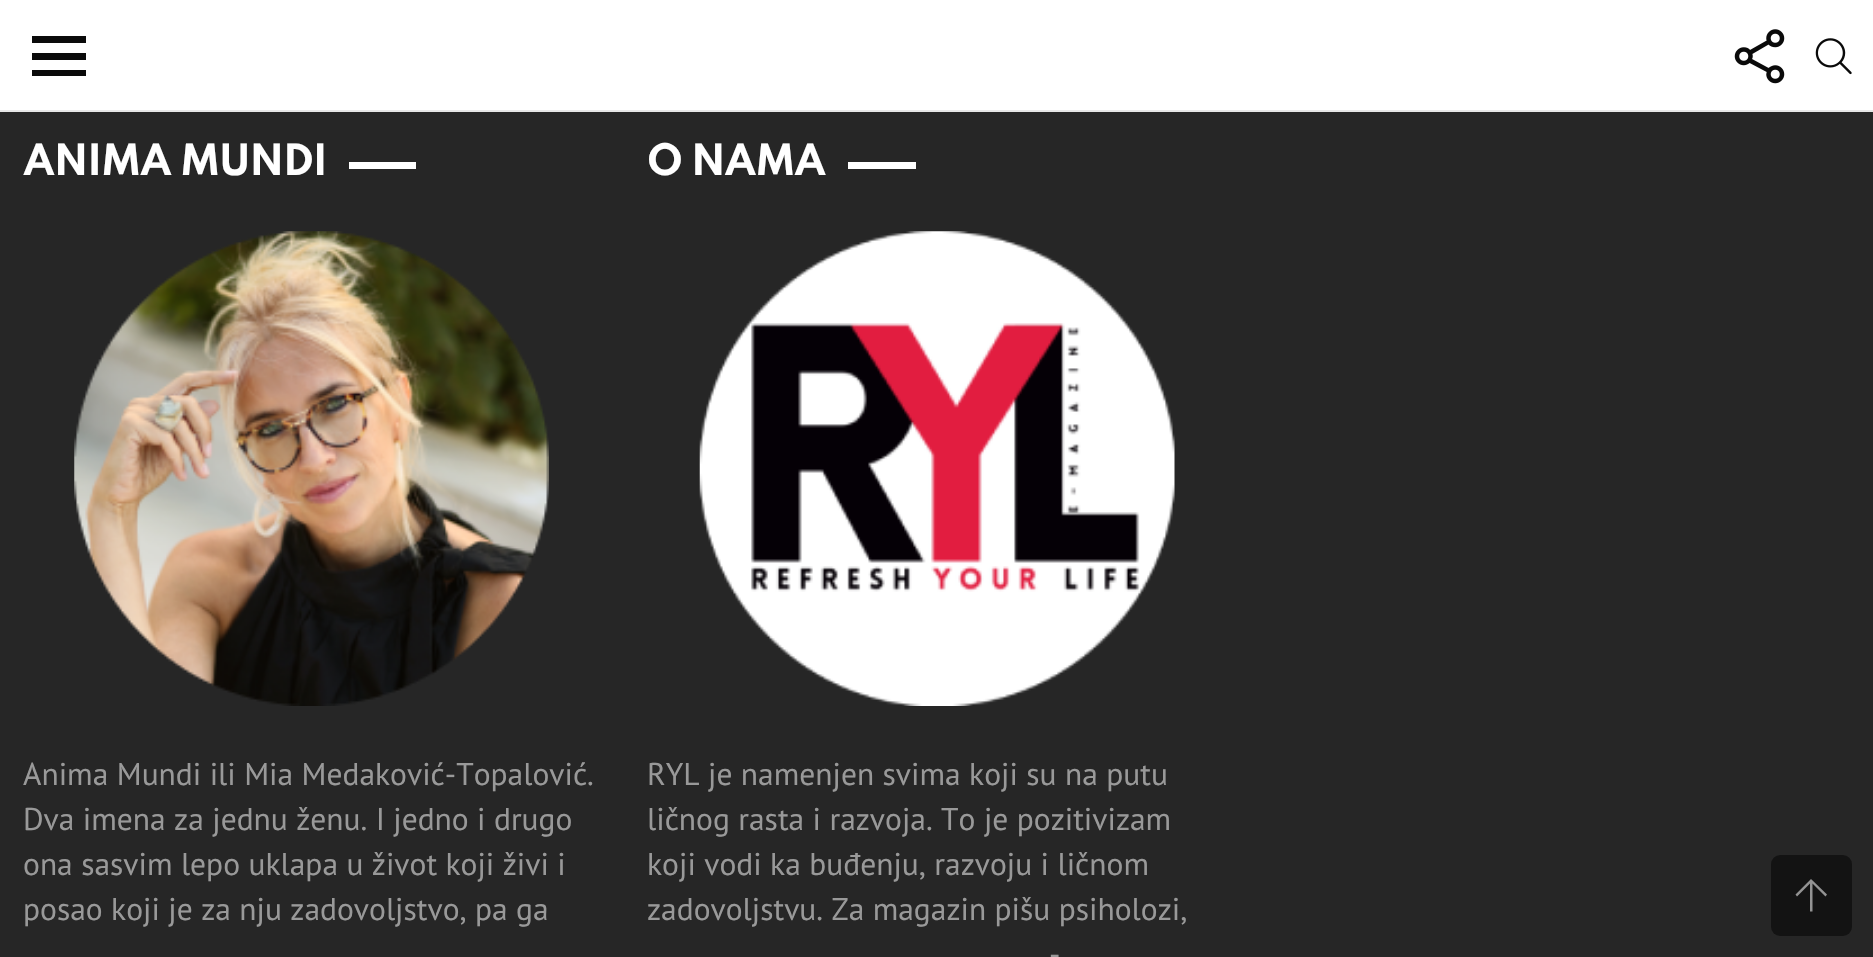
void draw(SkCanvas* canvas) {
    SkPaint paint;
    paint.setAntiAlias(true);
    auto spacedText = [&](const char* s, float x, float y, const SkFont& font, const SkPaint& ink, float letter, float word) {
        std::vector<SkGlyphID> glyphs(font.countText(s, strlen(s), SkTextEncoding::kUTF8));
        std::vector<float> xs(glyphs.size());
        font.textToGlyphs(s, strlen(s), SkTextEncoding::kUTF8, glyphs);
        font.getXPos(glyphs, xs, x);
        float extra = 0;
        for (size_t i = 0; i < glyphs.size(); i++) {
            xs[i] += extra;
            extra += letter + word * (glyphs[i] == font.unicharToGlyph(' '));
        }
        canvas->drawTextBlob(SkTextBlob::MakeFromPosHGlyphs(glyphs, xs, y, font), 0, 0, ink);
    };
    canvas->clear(0xFF262626);
    paint.setColor(0xFFFFFFFF);
    canvas->drawRect(SkRect::MakeXYWH(0, 0, 1873, 110), paint);
    paint.setColor(0xFFE6E6E6);
    canvas->drawRect(SkRect::MakeXYWH(0, 110, 1873, 2), paint);
    paint.setColor(0xFF0A0A0A);
    canvas->drawPath(SkPathBuilder().moveTo(32, 36).lineTo(86, 36).lineTo(86, 43).lineTo(32, 43).close().moveTo(32, 53).lineTo(86, 53).lineTo(86, 60).lineTo(32, 60).close().moveTo(32, 70).lineTo(86, 70).lineTo(86, 76).lineTo(32, 76).close().detach(), paint);
    canvas->drawImageRect(SkImages::DeferredFromEncodedData(SkData::MakeFromFileName("img1.png")), SkRect::MakeXYWH(1734, 29, 51, 55), SkSamplingOptions());
    canvas->drawImageRect(SkImages::DeferredFromEncodedData(SkData::MakeFromFileName("img2.png")), SkRect::MakeXYWH(1815, 38, 37, 37), SkSamplingOptions());
    SkFont font1(fontMgr->matchFamilyStyle("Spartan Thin", SkFontStyle::Bold()), 38.25f);
    font1.setSubpixel(true);
    paint.setColor(0xFFFFFFFF);
    spacedText("ANIMA MUNDI", 23, 175, font1, paint, -1.1f, 0);
    canvas->drawRect(SkRect::MakeXYWH(349, 162, 67, 7), paint);
    canvas->drawImageRect(SkImages::DeferredFromEncodedData(SkData::MakeFromFileName("img3.png")), SkRect::MakeXYWH(74, 231, 475, 475), SkSamplingOptions());
    SkFont font2(fontMgr->matchFamilyStyle("PT Sans", SkFontStyle::Normal()), 31.5f);
    font2.setSubpixel(true);
    paint.setColor(0xFF999999);
    canvas->drawString("Anima Mundi ili Mia Medaković-Topalović.", 23, 785, font2, paint);
    canvas->drawString("Dva imena za jednu ženu. I jedno i drugo", 23, 830, font2, paint);
    canvas->drawString("ona sasvim lepo uklapa u život koji živi i", 23, 875, font2, paint);
    canvas->drawString("posao koji je za nju zadovoljstvo, pa ga", 23, 920, font2, paint);
    paint.setColor(0xFFFFFFFF);
    spacedText("O NAMA", 647, 175, font1, paint, -1.1f, 0);
    canvas->drawRect(SkRect::MakeXYWH(848, 162, 68, 7), paint);
    canvas->drawImageRect(SkImages::DeferredFromEncodedData(SkData::MakeFromFileName("img4.png")), SkRect::MakeXYWH(699, 231, 476, 475), SkSamplingOptions());
    paint.setColor(0xFF999999);
    canvas->drawString("RYL je namenjen svima koji su na putu", 647, 785, font2, paint);
    canvas->drawString("ličnog rasta i razvoja. To je pozitivizam", 647, 830, font2, paint);
    canvas->drawString("koji vodi ka buđenju, razvoju i ličnom", 647, 875, font2, paint);
    canvas->drawString("zadovoljstvu. Za magazin pišu psiholozi,", 647, 920, font2, paint);
    canvas->drawString("-", 1049, 965, font2, paint);
    paint.setColor(0xFF131313);
    canvas->drawRoundRect(SkRect::MakeXYWH(1771, 855, 81, 81), 9, 9, paint);
    paint.setColor(0xFF939393);
    canvas->drawPath(SkPathBuilder().moveTo(1825.5f, 896.5f).lineTo(1812.5f, 883.5f).lineTo(1812.5f, 911.5f).lineTo(1810, 911.5f).lineTo(1810, 883.5f).lineTo(1797, 896.5f).lineTo(1795.5f, 894.5f).lineTo(1811, 879).lineTo(1827, 894.5f).close().detach(), paint);
}
